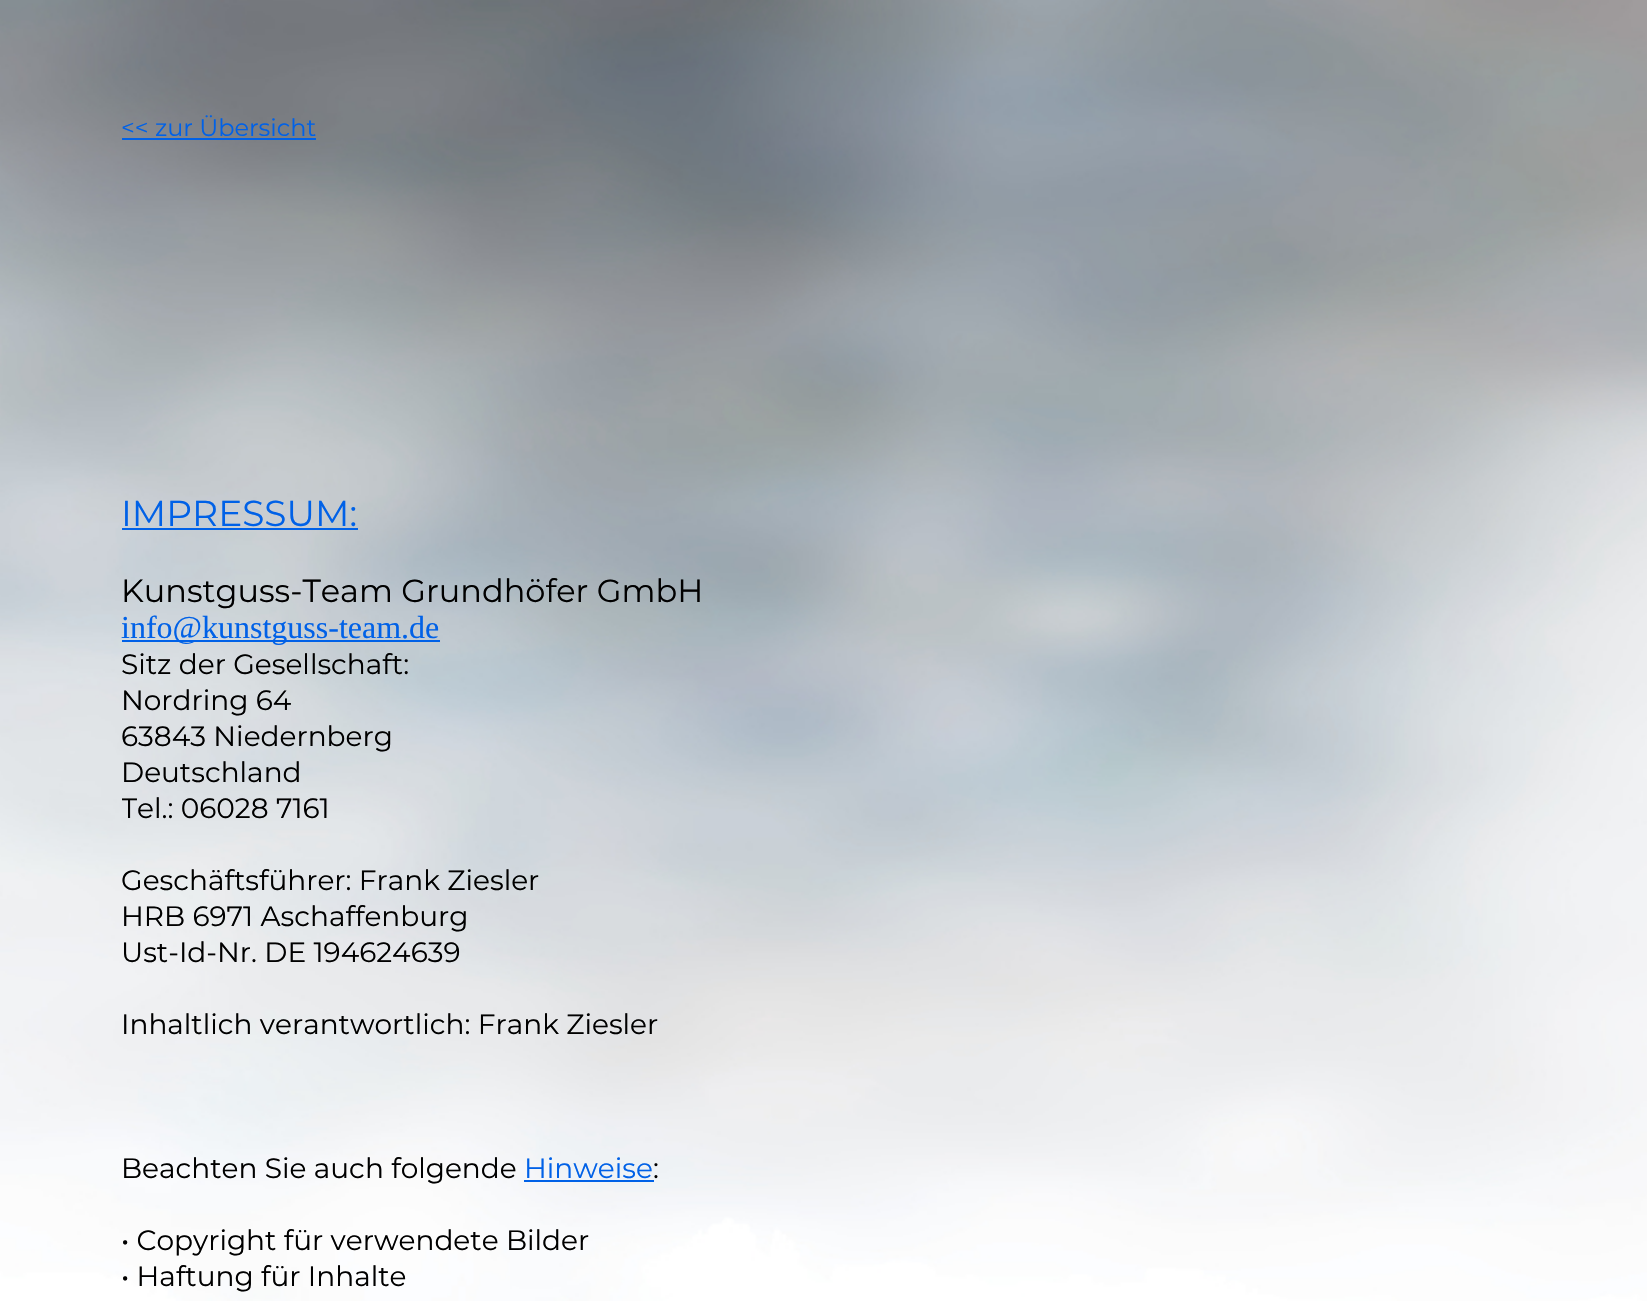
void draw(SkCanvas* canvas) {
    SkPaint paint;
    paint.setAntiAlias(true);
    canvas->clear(0xFFFFFFFF);
    canvas->drawImageRect(SkImages::DeferredFromEncodedData(SkData::MakeFromFileName("img1.png")), SkRect::MakeXYWH(0, 0, 1647, 1301), SkSamplingOptions());
    SkFont font1(fontMgr->matchFamilyStyle("Montserrat", SkFontStyle::Normal()), 24);
    font1.setSubpixel(true);
    paint.setColor(0xFF0061E7);
    canvas->drawString("<< zur Übersicht", 121, 136, font1, paint);
    canvas->drawRect(SkRect::MakeXYWH(122, 138, 194, 2), paint);
    SkFont font2(fontMgr->matchFamilyStyle("Montserrat", SkFontStyle::Normal()), 36);
    font2.setSubpixel(true);
    canvas->drawString("IMPRESSUM:", 121, 526, font2, paint);
    canvas->drawRect(SkRect::MakeXYWH(122, 528, 236, 2), paint);
    SkFont font3(fontMgr->matchFamilyStyle("Montserrat", SkFontStyle::Normal()), 32);
    font3.setSubpixel(true);
    paint.setColor(0xFF000000);
    canvas->drawString("Kunstguss-Team Grundhöfer GmbH", 121, 602, font3, paint);
    paint.setColor(0xFF0061E7);
    canvas->drawRect(SkRect::MakeXYWH(122, 640, 318, 2), paint);
    SkFont font4(fontMgr->matchFamilyStyle("Liberation Serif", SkFontStyle::Normal()), 32);
    font4.setSubpixel(true);
    canvas->drawString("info@kunstguss-team.de", 121, 638, font4, paint);
    SkFont font5(fontMgr->matchFamilyStyle("Montserrat", SkFontStyle::Normal()), 28);
    font5.setSubpixel(true);
    paint.setColor(0xFF000000);
    canvas->drawString("Sitz der Gesellschaft:", 121, 674, font5, paint);
    canvas->drawString("Nordring 64", 121, 710, font5, paint);
    canvas->drawString("63843 Niedernberg", 121, 746, font5, paint);
    canvas->drawString("Deutschland", 121, 782, font5, paint);
    canvas->save();
    canvas->clipRect(SkRect::MakeXYWH(122, 536, 1404, 290));
    canvas->drawString("Tel.: 06028 7161", 121, 818, font5, paint);
    canvas->restore();
    canvas->drawString("Geschäftsführer: Frank Ziesler", 121, 890, font5, paint);
    canvas->drawString("HRB 6971 Aschaffenburg", 121, 926, font5, paint);
    canvas->drawString("Ust-Id-Nr. DE 194624639", 121, 962, font5, paint);
    canvas->drawString("Inhaltlich verantwortlich: Frank Ziesler", 121, 1034, font5, paint);
    canvas->drawString("Beachten Sie auch folgende", 121, 1178, font5, paint);
    paint.setColor(0xFF0061E7);
    canvas->drawString("Hinweise", 524, 1178, font5, paint);
    paint.setColor(0xFF000000);
    canvas->drawString(":", 653, 1178, font5, paint);
    paint.setColor(0xFF0061E7);
    canvas->drawRect(SkRect::MakeXYWH(524, 1180, 130, 2), paint);
    paint.setColor(0xFF000000);
    canvas->drawString("• Copyright für verwendete Bilder", 121, 1250, font5, paint);
    canvas->drawString("• Haftung für Inhalte", 121, 1286, font5, paint);
}
